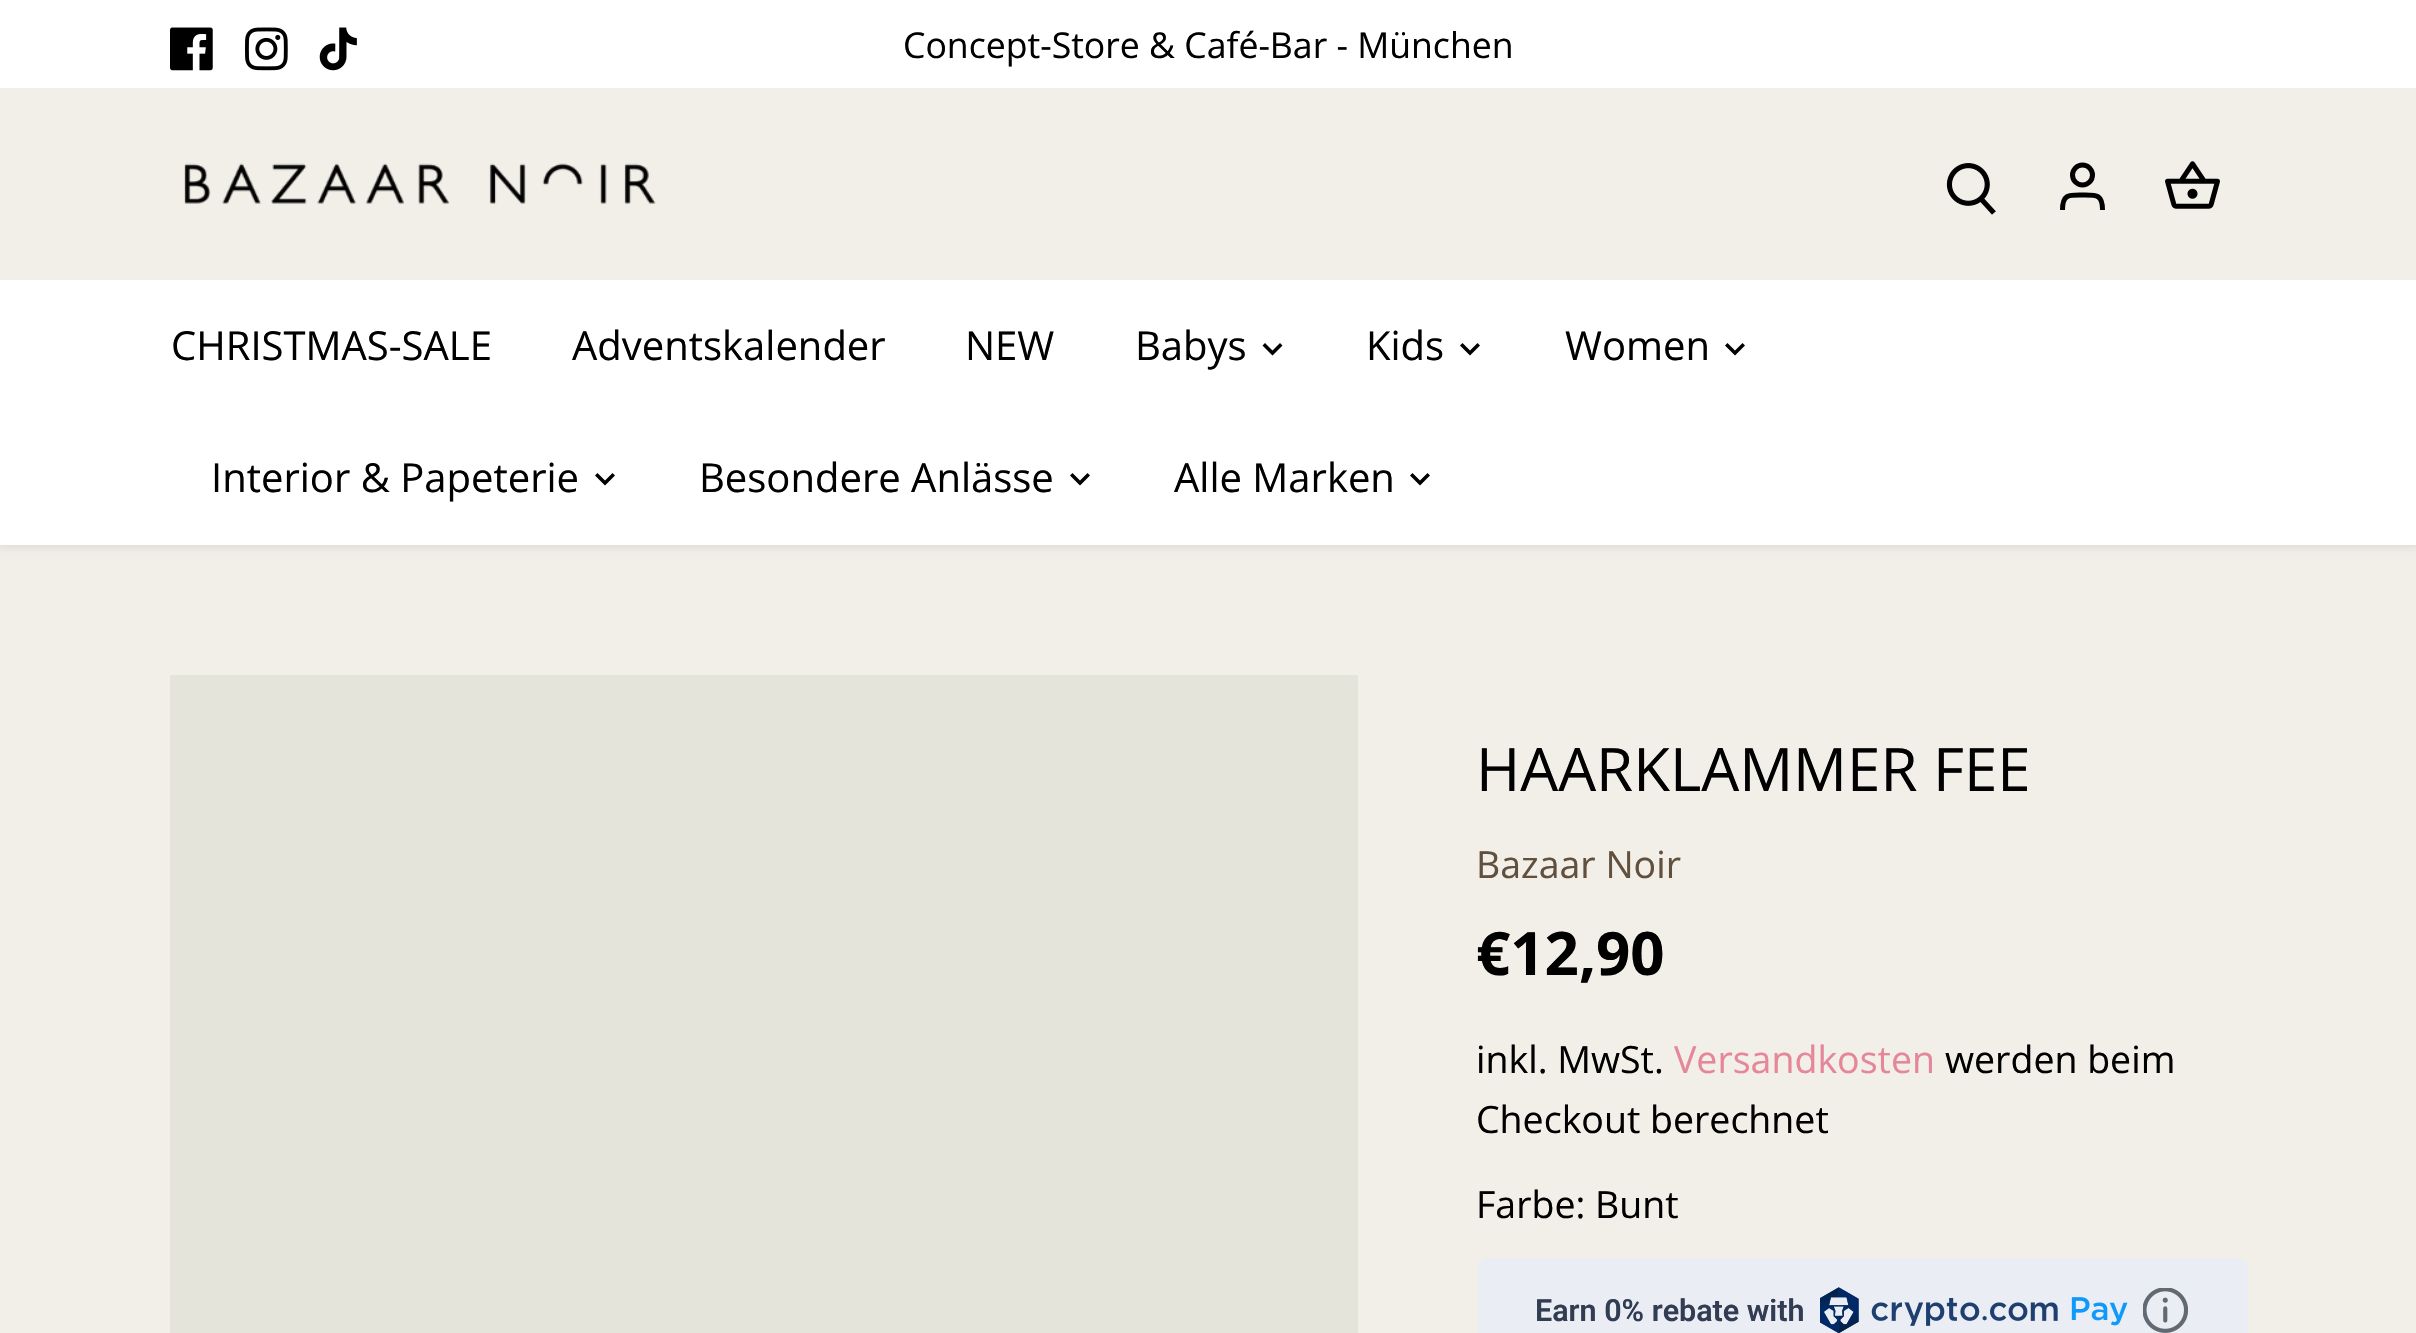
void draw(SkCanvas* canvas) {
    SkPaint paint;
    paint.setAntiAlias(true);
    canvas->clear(0xFFF2EFE8);
    paint.setColor(0x14000000);
    paint.setMaskFilter(SkMaskFilter::MakeBlur(kNormal_SkBlurStyle, 4));
    canvas->drawRect(SkRect::MakeXYWH(-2, 85, 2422, 463), paint);
    paint.setMaskFilter(nullptr);
    paint.setColor(0xFFFFFFFF);
    canvas->drawRect(SkRect::MakeXYWH(0, 0, 2416, 88), paint);
    canvas->drawImageRect(SkImages::DeferredFromEncodedData(SkData::MakeFromFileName("img1.png")), SkRect::MakeXYWH(170, 27, 43, 44), SkSamplingOptions());
    canvas->drawImageRect(SkImages::DeferredFromEncodedData(SkData::MakeFromFileName("img2.png")), SkRect::MakeXYWH(245, 27, 43, 44), SkSamplingOptions());
    canvas->drawImageRect(SkImages::DeferredFromEncodedData(SkData::MakeFromFileName("img3.png")), SkRect::MakeXYWH(319, 27, 38, 44), SkSamplingOptions());
    SkFont font1(fontMgr->matchFamilyStyle("Open Sans", SkFontStyle::Normal()), 35.6f);
    font1.setSubpixel(true);
    paint.setColor(0xFF000000);
    canvas->drawString("Concept-Store & Café-Bar - München", 903, 58, font1, paint);
    paint.setColor(0xFFFFFFFF);
    canvas->drawRect(SkRect::MakeXYWH(0, 280, 2416, 265), paint);
    paint.setColor(0xFFF2EFE8);
    canvas->drawRect(SkRect::MakeXYWH(0, 88, 2416, 192), paint);
    canvas->drawImageRect(SkImages::DeferredFromEncodedData(SkData::MakeFromFileName("img4.png")), SkRect::MakeXYWH(184, 163, 472, 41), SkSamplingOptions());
    canvas->drawImageRect(SkImages::DeferredFromEncodedData(SkData::MakeFromFileName("img5.png")), SkRect::MakeXYWH(1946, 163, 50, 52), SkSamplingOptions());
    paint.setStyle(SkPaint::kStroke_Style);
    paint.setStrokeWidth(5);
    paint.setColor(0xFF000000);
    canvas->drawCircle(2082.5f, 175, 10, paint);
    canvas->drawPath(SkPathBuilder().moveTo(2102.5f, 210).cubicTo(2102.5f, 194, 2096.5f, 195, 2082.5f, 195).cubicTo(2068.5f, 195, 2062.5f, 194, 2062.5f, 210).detach(), paint);
    canvas->drawImageRect(SkImages::DeferredFromEncodedData(SkData::MakeFromFileName("img6.png")), SkRect::MakeXYWH(2165, 161, 55, 48), SkSamplingOptions());
    SkFont font2(fontMgr->matchFamilyStyle("Open Sans", SkFontStyle::Normal()), 40);
    font2.setSubpixel(true);
    paint.setStyle(SkPaint::kFill_Style);
    canvas->drawString("CHRISTMAS-SALE", 171, 360, font2, paint);
    canvas->drawString("Adventskalender", 572, 360, font2, paint);
    canvas->drawString("NEW", 965, 360, font2, paint);
    canvas->drawString("Babys", 1135, 360, font2, paint);
    canvas->drawPath(SkPathBuilder().moveTo(1265, 343).lineTo(1272.5f, 350.5f).lineTo(1280, 343).lineTo(1282.5f, 345.5f).lineTo(1272.5f, 355.5f).lineTo(1262.5f, 345.5f).close().detach(), paint);
    canvas->drawString("Kids", 1366, 360, font2, paint);
    canvas->drawPath(SkPathBuilder().moveTo(1462.5f, 343).lineTo(1470, 350.5f).lineTo(1477.5f, 343).lineTo(1480, 345.5f).lineTo(1470, 355.5f).lineTo(1460, 345.5f).close().detach(), paint);
    canvas->drawString("Women", 1565, 360, font2, paint);
    canvas->drawPath(SkPathBuilder().moveTo(1727.5f, 343).lineTo(1735, 350.5f).lineTo(1742.5f, 343).lineTo(1745, 345.5f).lineTo(1735, 355.5f).lineTo(1725, 345.5f).close().detach(), paint);
    canvas->drawString("Interior & Papeterie", 211, 492, font2, paint);
    canvas->drawPath(SkPathBuilder().moveTo(597.5f, 473).lineTo(605, 480.5f).lineTo(612.5f, 473).lineTo(615, 475.5f).lineTo(605, 485.5f).lineTo(595, 475.5f).close().detach(), paint);
    canvas->drawString("Besondere Anlässe", 699, 492, font2, paint);
    canvas->drawPath(SkPathBuilder().moveTo(1072.5f, 473).lineTo(1080, 480.5f).lineTo(1087.5f, 473).lineTo(1090, 475.5f).lineTo(1080, 485.5f).lineTo(1070, 475.5f).close().detach(), paint);
    canvas->drawString("Alle Marken", 1174, 492, font2, paint);
    canvas->drawPath(SkPathBuilder().moveTo(1412.5f, 473).lineTo(1420, 480.5f).lineTo(1427.5f, 473).lineTo(1430, 475.5f).lineTo(1420, 485.5f).lineTo(1410, 475.5f).close().detach(), paint);
    paint.setColor(0xFFE4E4DA);
    canvas->drawRect(SkRect::MakeXYWH(170, 675, 1188, 658), paint);
    SkFont font3(fontMgr->matchFamilyStyle("Open Sans", SkFontStyle::Normal()), 60);
    font3.setSubpixel(true);
    paint.setColor(0xFF000000);
    canvas->drawString("HAARKLAMMER FEE", 1476, 791, font3, paint);
    SkFont font4(fontMgr->matchFamilyStyle("Open Sans", SkFontStyle::Normal()), 37.5f);
    font4.setSubpixel(true);
    paint.setColor(0xFF61503D);
    canvas->drawString("Bazaar Noir", 1476, 878, font4, paint);
    SkFont font5(fontMgr->matchFamilyStyle("Open Sans", SkFontStyle::Bold()), 60);
    font5.setSubpixel(true);
    paint.setColor(0xFF000000);
    canvas->drawString("€12,90", 1476, 975, font5, paint);
    canvas->drawString("inkl. MwSt.", 1476, 1073, font4, paint);
    paint.setColor(0xFFE68699);
    canvas->drawString("Versandkosten", 1674, 1073, font4, paint);
    paint.setColor(0xFF000000);
    canvas->drawString("werden beim", 1945, 1073, font4, paint);
    canvas->drawString("Checkout berechnet", 1476, 1133, font4, paint);
    canvas->drawString("Farbe: Bunt", 1476, 1218, font4, paint);
    paint.setColor(0xFFEAEEF4);
    canvas->drawRoundRect(SkRect::MakeXYWH(1478, 1258, 770, 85), 10, 10, paint);
    SkFont font6(fontMgr->matchFamilyStyle("Roboto", SkFontStyle(600, SkFontStyle::kNormal_Width, SkFontStyle::kUpright_Slant)), 30.5f);
    font6.setSubpixel(true);
    paint.setColor(0xFF323C52);
    canvas->drawString("Earn 0% rebate with", 1535, 1321, font6, paint);
    canvas->drawImageRect(SkImages::DeferredFromEncodedData(SkData::MakeFromFileName("img7.png")), SkRect::MakeXYWH(1820, 1287, 308, 46), SkSamplingOptions());
    canvas->drawImageRect(SkImages::DeferredFromEncodedData(SkData::MakeFromFileName("img8.png")), SkRect::MakeXYWH(2143, 1288, 45, 45), SkSamplingOptions());
}
